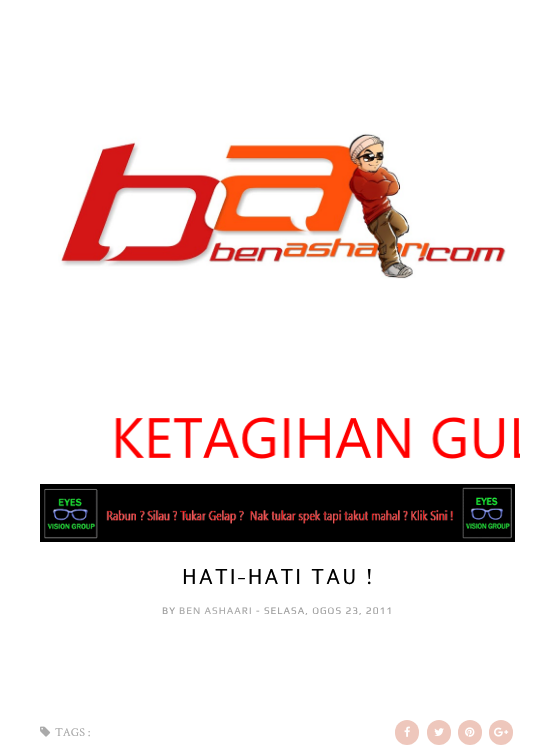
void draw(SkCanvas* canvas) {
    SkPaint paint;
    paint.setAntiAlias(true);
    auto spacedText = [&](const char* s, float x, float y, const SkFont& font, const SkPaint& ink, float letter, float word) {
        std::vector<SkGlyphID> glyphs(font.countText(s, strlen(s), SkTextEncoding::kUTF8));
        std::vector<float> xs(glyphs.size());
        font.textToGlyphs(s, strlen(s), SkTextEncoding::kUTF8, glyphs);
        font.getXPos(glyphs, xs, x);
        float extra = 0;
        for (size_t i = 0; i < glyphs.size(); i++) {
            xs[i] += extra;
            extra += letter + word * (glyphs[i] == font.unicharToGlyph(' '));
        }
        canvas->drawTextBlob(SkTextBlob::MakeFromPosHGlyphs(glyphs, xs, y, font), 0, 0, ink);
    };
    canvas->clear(0xFFFFFFFF);
    canvas->drawImageRect(SkImages::DeferredFromEncodedData(SkData::MakeFromFileName("img1.png")), SkRect::MakeXYWH(58, 131, 448, 148), SkSamplingOptions());
    canvas->drawImageRect(SkImages::DeferredFromEncodedData(SkData::MakeFromFileName("img2.png")), SkRect::MakeXYWH(115, 417, 405, 42), SkSamplingOptions());
    canvas->drawImageRect(SkImages::DeferredFromEncodedData(SkData::MakeFromFileName("img3.png")), SkRect::MakeXYWH(40, 484, 475, 58), SkSamplingOptions());
    SkFont font1(fontMgr->matchFamilyStyle("Molengo", SkFontStyle::Normal()), 22);
    font1.setSubpixel(true);
    paint.setColor(0xFF000000);
    spacedText("HATI-HATI TAU !", 182, 584, font1, paint, 2, 0);
    SkFont font2(fontMgr->matchFamilyStyle("Play", SkFontStyle::Normal()), 10);
    font2.setSubpixel(true);
    paint.setColor(0xFF9E9E9E);
    spacedText("BY", 162, 614, font2, paint, 1, 0);
    paint.setColor(0xFFAAAAAA);
    spacedText("BEN ASHAARI", 179, 614, font2, paint, 1, 0);
    paint.setColor(0xFF9E9E9E);
    spacedText("- SELASA, OGOS 23, 2011", 256, 614, font2, paint, 1, 0);
    canvas->drawImageRect(SkImages::DeferredFromEncodedData(SkData::MakeFromFileName("img4.png")), SkRect::MakeXYWH(40, 726, 11, 11), SkSamplingOptions());
    SkFont font3(fontMgr->matchFamilyStyle("Crimson Text", SkFontStyle::Normal()), 12);
    font3.setSubpixel(true);
    paint.setColor(0xFFAAAAAA);
    canvas->drawString("TAGS :", 55, 736, font3, paint);
    paint.setColor(0xFFEEC7BC);
    canvas->drawRoundRect(SkRect::MakeXYWH(395, 720, 24, 25), 12, 12, paint);
    canvas->drawImageRect(SkImages::DeferredFromEncodedData(SkData::MakeFromFileName("img5.png")), SkRect::MakeXYWH(404, 726, 6, 11), SkSamplingOptions());
    canvas->drawRoundRect(SkRect::MakeXYWH(427, 720, 24, 25), 12, 12, paint);
    canvas->drawImageRect(SkImages::DeferredFromEncodedData(SkData::MakeFromFileName("img6.png")), SkRect::MakeXYWH(434, 728, 10, 8), SkSamplingOptions());
    canvas->drawRoundRect(SkRect::MakeXYWH(458, 720, 24, 25), 12, 12, paint);
    canvas->drawImageRect(SkImages::DeferredFromEncodedData(SkData::MakeFromFileName("img7.png")), SkRect::MakeXYWH(465, 727, 10, 10), SkSamplingOptions());
    canvas->drawRoundRect(SkRect::MakeXYWH(489, 720, 24, 25), 12, 12, paint);
    canvas->drawImageRect(SkImages::DeferredFromEncodedData(SkData::MakeFromFileName("img8.png")), SkRect::MakeXYWH(494, 727, 15, 10), SkSamplingOptions());
}
